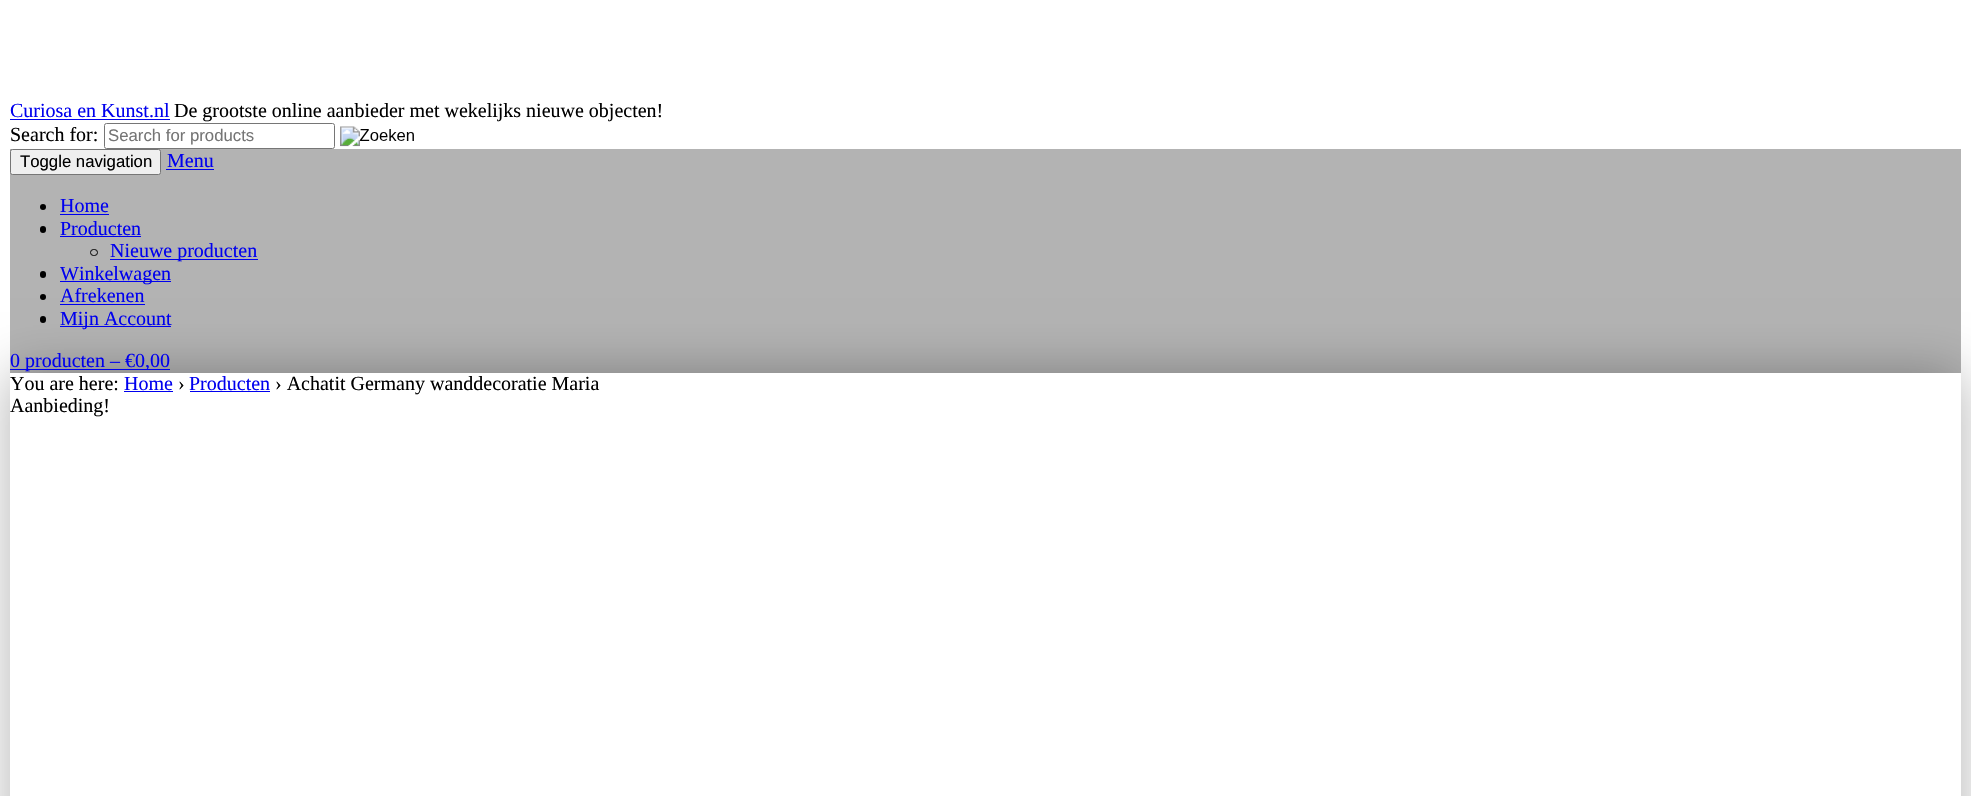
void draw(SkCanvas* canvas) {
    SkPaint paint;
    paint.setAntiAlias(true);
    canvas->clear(0xFFFFFFFF);
    SkFont font1(fontMgr->matchFamilyStyle("Liberation Serif", SkFontStyle::Normal()), 20);
    font1.setSubpixel(true);
    paint.setColor(0xFF0000EE);
    canvas->drawString("Curiosa en Kunst.nl", 10, 117, font1, paint);
    canvas->drawRect(SkRect::MakeXYWH(10, 119, 160, 1), paint);
    paint.setColor(0xFF000000);
    canvas->drawString("De grootste online aanbieder met wekelijks nieuwe objecten!", 174, 117, font1, paint);
    canvas->drawString("Search for:", 10, 141, font1, paint);
    paint.setStyle(SkPaint::kStroke_Style);
    paint.setStrokeWidth(1);
    paint.setColor(0xFF767676);
    canvas->drawRoundRect(SkRect::MakeXYWH(104.5f, 123.5f, 230, 25), 2, 2, paint);
    SkFont font2(fontMgr->matchFamilyStyle("Liberation Sans", SkFontStyle::Normal()), 16.75f);
    font2.setSubpixel(true);
    paint.setStyle(SkPaint::kFill_Style);
    paint.setColor(0xFF757575);
    canvas->drawString("Search for products", 108, 141, font2, paint);
    canvas->drawImageRect(SkImages::DeferredFromEncodedData(SkData::MakeFromFileName("img1.png")), SkRect::MakeXYWH(340, 126, 74, 21), SkSamplingOptions());
    paint.setColor(0xFFB3B3B3);
    canvas->drawRect(SkRect::MakeXYWH(10, 149, 1951, 224), paint);
    paint.setColor(0xFFEFEFEF);
    canvas->drawRoundRect(SkRect::MakeXYWH(10.5f, 149.5f, 150, 25), 2, 2, paint);
    paint.setStyle(SkPaint::kStroke_Style);
    paint.setColor(0xFF767676);
    canvas->drawRoundRect(SkRect::MakeXYWH(10.5f, 149.5f, 150, 25), 2, 2, paint);
    paint.setStyle(SkPaint::kFill_Style);
    paint.setColor(0xFF000000);
    canvas->drawString("Toggle navigation", 20, 167, font2, paint);
    paint.setColor(0xFF0000EE);
    canvas->drawString("Menu", 167, 167, font1, paint);
    canvas->drawRect(SkRect::MakeXYWH(166, 169, 48, 1), paint);
    paint.setColor(0xFF000000);
    canvas->drawCircle(43, 207, 3, paint);
    paint.setColor(0xFF0000EE);
    canvas->drawString("Home", 60, 212, font1, paint);
    canvas->drawRect(SkRect::MakeXYWH(60, 214, 49, 1), paint);
    paint.setColor(0xFF000000);
    canvas->drawRoundRect(SkRect::MakeXYWH(40, 226, 6, 7), 3, 3, paint);
    paint.setColor(0xFF0000EE);
    canvas->drawString("Producten", 60, 235, font1, paint);
    canvas->drawRect(SkRect::MakeXYWH(60, 236, 81, 1), paint);
    paint.setStyle(SkPaint::kStroke_Style);
    paint.setColor(0xFF000000);
    canvas->drawRoundRect(SkRect::MakeXYWH(90.5f, 249.5f, 7, 6), 3, 3, paint);
    paint.setStyle(SkPaint::kFill_Style);
    paint.setColor(0xFF0000EE);
    canvas->drawRect(SkRect::MakeXYWH(110, 259, 148, 1), paint);
    canvas->drawString("Nieuwe producten", 110, 257, font1, paint);
    paint.setColor(0xFF000000);
    canvas->drawRoundRect(SkRect::MakeXYWH(40, 271, 6, 7), 3, 3, paint);
    paint.setColor(0xFF0000EE);
    canvas->drawRect(SkRect::MakeXYWH(60, 281, 111, 1), paint);
    canvas->drawString("Winkelwagen", 60, 280, font1, paint);
    canvas->save();
    canvas->clipPath(SkPathBuilder(SkPathFillType::kEvenOdd).moveTo(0, 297).lineTo(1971, 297).lineTo(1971, 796).lineTo(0, 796).close().moveTo(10, 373).lineTo(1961, 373).lineTo(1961, 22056).lineTo(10, 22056).close().detach(), true);
    paint.setColor(0x4D000000);
    paint.setMaskFilter(SkMaskFilter::MakeBlur(kNormal_SkBlurStyle, 25));
    canvas->drawRect(SkRect::MakeXYWH(10, 373, 1951, 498), paint);
    paint.setMaskFilter(nullptr);
    canvas->restore();
    paint.setColor(0xFF000000);
    canvas->drawCircle(43, 297, 3, paint);
    paint.setColor(0xFF0000EE);
    canvas->drawString("Afrekenen", 60, 302, font1, paint);
    canvas->drawRect(SkRect::MakeXYWH(60, 304, 85, 1), paint);
    paint.setColor(0xFF000000);
    canvas->drawRoundRect(SkRect::MakeXYWH(40, 316, 6, 7), 3, 3, paint);
    paint.setColor(0xFF0000EE);
    canvas->drawRect(SkRect::MakeXYWH(60, 326, 111, 1), paint);
    canvas->drawString("Mijn Account", 60, 325, font1, paint);
    canvas->drawRect(SkRect::MakeXYWH(10, 369, 160, 1), paint);
    canvas->drawString("0 producten – €0,00", 10, 367, font1, paint);
    paint.setColor(0xFF000000);
    canvas->drawString("You are here:", 10, 390, font1, paint);
    paint.setColor(0xFF0000EE);
    canvas->drawString("Home", 124, 390, font1, paint);
    canvas->drawRect(SkRect::MakeXYWH(124, 391, 49, 1), paint);
    paint.setColor(0xFF000000);
    canvas->drawString("›", 178, 390, font1, paint);
    paint.setColor(0xFF0000EE);
    canvas->drawString("Producten", 189, 390, font1, paint);
    canvas->drawRect(SkRect::MakeXYWH(190, 391, 80, 1), paint);
    paint.setColor(0xFF000000);
    canvas->drawString("› Achatit Germany wanddecoratie Maria", 275, 390, font1, paint);
    canvas->drawString("Aanbieding!", 10, 412, font1, paint);
}
